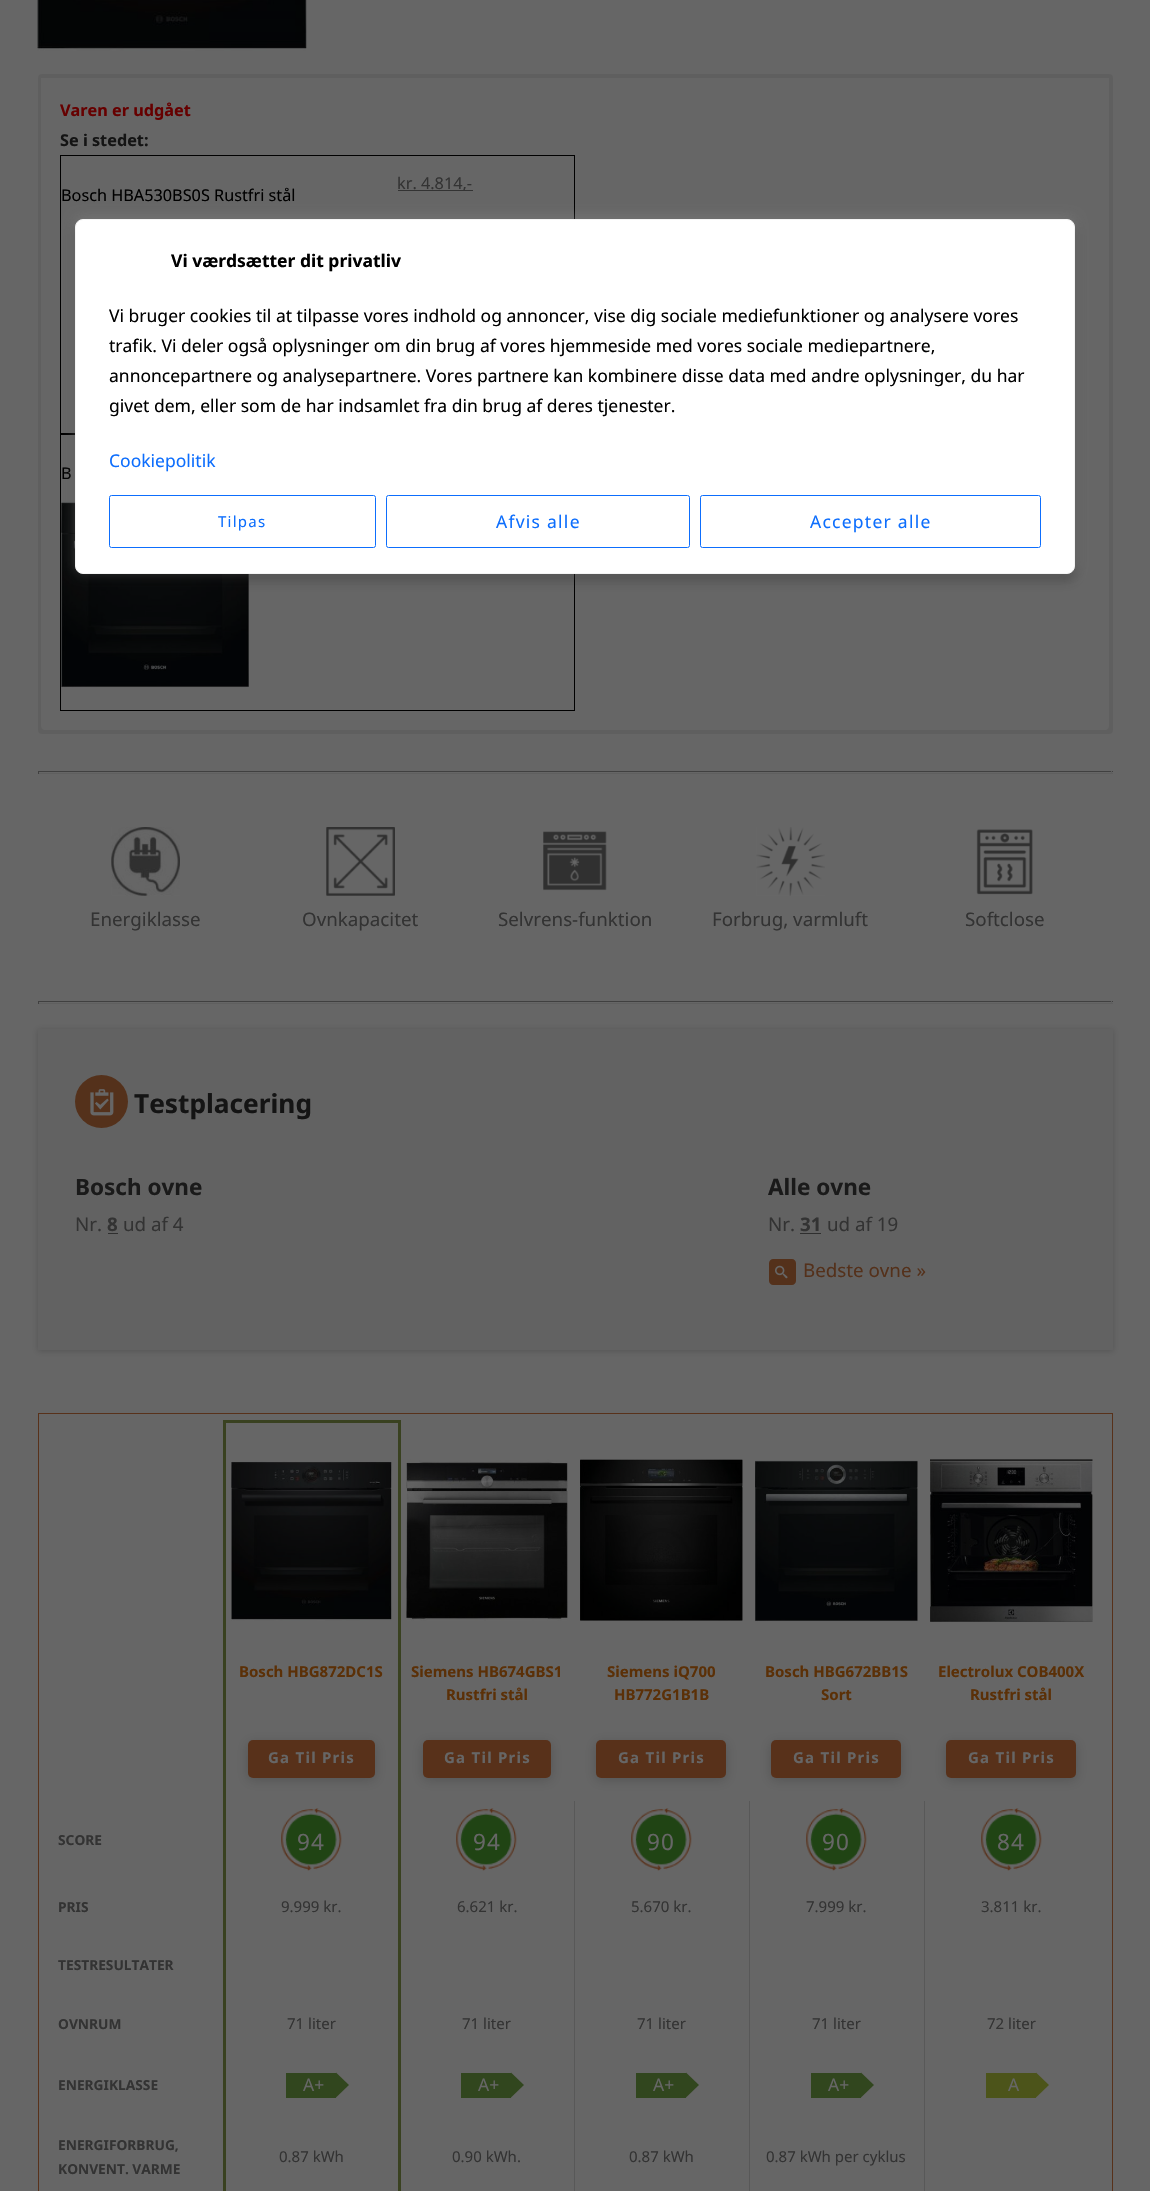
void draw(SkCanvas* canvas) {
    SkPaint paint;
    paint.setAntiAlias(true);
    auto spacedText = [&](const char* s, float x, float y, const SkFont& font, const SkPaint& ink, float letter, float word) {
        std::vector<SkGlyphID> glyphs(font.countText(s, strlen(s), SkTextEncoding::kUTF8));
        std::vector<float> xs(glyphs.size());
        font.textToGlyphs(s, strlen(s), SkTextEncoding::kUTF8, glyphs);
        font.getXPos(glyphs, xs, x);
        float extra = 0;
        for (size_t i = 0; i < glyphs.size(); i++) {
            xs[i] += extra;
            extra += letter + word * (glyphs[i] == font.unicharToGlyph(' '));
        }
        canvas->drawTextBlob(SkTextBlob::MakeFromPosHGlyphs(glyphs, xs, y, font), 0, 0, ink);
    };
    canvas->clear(0xFF666666);
    canvas->drawImageRect(SkImages::DeferredFromEncodedData(SkData::MakeFromFileName("img1.png")), SkRect::MakeXYWH(37, 0, 270, 51), SkSamplingOptions());
    paint.setColor(0xFF5F5F5F);
    canvas->drawRoundRect(SkRect::MakeXYWH(38, 74, 1075, 660), 4, 4, paint);
    paint.setColor(0xFF666666);
    canvas->drawPath(SkPathBuilder().moveTo(41, 78).lineTo(1109, 78).lineTo(1109, 726).cubicTo(1109, 728, 1107, 730, 1105, 730).lineTo(45, 730).cubicTo(43, 730, 41, 728, 41, 726).close().detach(), paint);
    SkFont font1(fontMgr->matchFamilyStyle("Noto Sans", SkFontStyle::Bold()), 16.25f);
    font1.setSubpixel(true);
    paint.setColor(0xFF660000);
    canvas->drawString("Varen er udgået", 60, 116, font1, paint);
    paint.setColor(0xFF141414);
    canvas->drawString("Se i stedet:", 60, 146, font1, paint);
    paint.setStyle(SkPaint::kStroke_Style);
    paint.setStrokeWidth(1);
    paint.setColor(0xFF000000);
    canvas->drawRect(SkRect::MakeXYWH(60.5f, 155.5f, 514, 278), paint);
    paint.setStyle(SkPaint::kFill_Style);
    paint.setColor(0xFF333333);
    canvas->drawRect(SkRect::MakeXYWH(398, 190, 75, 1), paint);
    SkFont font2(fontMgr->matchFamilyStyle("Noto Sans", SkFontStyle::Normal()), 16.25f);
    font2.setSubpixel(true);
    canvas->drawString("kr. 4.814,-", 397, 189, font2, paint);
    paint.setColor(0xFF000000);
    canvas->drawString("Bosch HBA530BS0S Rustfri stål", 61, 201, font2, paint);
    paint.setStyle(SkPaint::kStroke_Style);
    canvas->drawRect(SkRect::MakeXYWH(60.5f, 434.5f, 514, 276), paint);
    paint.setStyle(SkPaint::kFill_Style);
    canvas->drawString("B", 61, 479, font2, paint);
    canvas->drawImageRect(SkImages::DeferredFromEncodedData(SkData::MakeFromFileName("img2.png")), SkRect::MakeXYWH(61, 501, 188, 187), SkSamplingOptions());
    paint.setColor(0xFF404040);
    canvas->drawRect(SkRect::MakeXYWH(38, 771, 1075, 1), paint);
    paint.setColor(0xFF5F5F5F);
    canvas->drawRect(SkRect::MakeXYWH(1111, 771, 1, 3), paint);
    canvas->drawRect(SkRect::MakeXYWH(38, 773, 1075, 1), paint);
    paint.setColor(0xFF404040);
    canvas->drawRect(SkRect::MakeXYWH(38, 771, 1, 3), paint);
    canvas->drawImageRect(SkImages::DeferredFromEncodedData(SkData::MakeFromFileName("img3.png")), SkRect::MakeXYWH(111, 827, 69, 69), SkSamplingOptions());
    SkFont font3(fontMgr->matchFamilyStyle("Noto Sans", SkFontStyle::Normal()), 18.75f);
    font3.setSubpixel(true);
    paint.setColor(0xFF333333);
    canvas->drawString("Energiklasse", 90, 926, font3, paint);
    canvas->drawImageRect(SkImages::DeferredFromEncodedData(SkData::MakeFromFileName("img4.png")), SkRect::MakeXYWH(326, 827, 69, 69), SkSamplingOptions());
    canvas->drawString("Ovnkapacitet", 302, 926, font3, paint);
    canvas->drawImageRect(SkImages::DeferredFromEncodedData(SkData::MakeFromFileName("img5.png")), SkRect::MakeXYWH(543, 831, 64, 60), SkSamplingOptions());
    canvas->drawString("Selvrens-funktion", 498, 926, font3, paint);
    canvas->drawImageRect(SkImages::DeferredFromEncodedData(SkData::MakeFromFileName("img6.png")), SkRect::MakeXYWH(756, 827, 69, 69), SkSamplingOptions());
    canvas->drawString("Forbrug, varmluft", 712, 926, font3, paint);
    canvas->drawImageRect(SkImages::DeferredFromEncodedData(SkData::MakeFromFileName("img7.png")), SkRect::MakeXYWH(976, 829, 57, 66), SkSamplingOptions());
    canvas->drawString("Softclose", 965, 926, font3, paint);
    paint.setColor(0xFF404040);
    canvas->drawRect(SkRect::MakeXYWH(38, 1001, 1075, 1), paint);
    paint.setColor(0xFF5F5F5F);
    canvas->drawRect(SkRect::MakeXYWH(1111, 1001, 1, 3), paint);
    canvas->drawRect(SkRect::MakeXYWH(38, 1003, 1075, 1), paint);
    paint.setColor(0xFF404040);
    canvas->drawRect(SkRect::MakeXYWH(38, 1001, 1, 3), paint);
    paint.setColor(0x2E000000);
    paint.setMaskFilter(SkMaskFilter::MakeBlur(kNormal_SkBlurStyle, 3));
    canvas->drawRect(SkRect::MakeXYWH(38, 1030, 1075, 321), paint);
    paint.setMaskFilter(nullptr);
    paint.setColor(0xFF626262);
    canvas->drawRect(SkRect::MakeXYWH(38, 1029, 1075, 321), paint);
    paint.setColor(0xFF54311B);
    canvas->drawCircle(101.5f, 1101.5f, 26.5f, paint);
    canvas->drawImageRect(SkImages::DeferredFromEncodedData(SkData::MakeFromFileName("img8.png")), SkRect::MakeXYWH(90, 1089, 24, 27), SkSamplingOptions());
    SkFont font4(fontMgr->matchFamilyStyle("Noto Sans", SkFontStyle::Bold()), 26.25f);
    font4.setSubpixel(true);
    paint.setColor(0xFF141414);
    canvas->drawString("Testplacering", 134, 1113, font4, paint);
    SkFont font5(fontMgr->matchFamilyStyle("Noto Sans", SkFontStyle::Bold()), 22.5f);
    font5.setSubpixel(true);
    paint.setColor(0xFF1A1A1A);
    canvas->drawString("Bosch ovne", 75, 1195, font5, paint);
    paint.setColor(0xFF333333);
    canvas->drawString("Nr.", 75, 1231, font3, paint);
    SkFont font6(fontMgr->matchFamilyStyle("Noto Sans", SkFontStyle::Bold()), 18.75f);
    font6.setSubpixel(true);
    canvas->drawString("8", 107, 1231, font6, paint);
    paint.setColor(0xFF2F2F2F);
    canvas->drawRect(SkRect::MakeXYWH(108, 1233, 10, 1), paint);
    paint.setColor(0xFF333333);
    canvas->drawString("ud af 4", 123, 1231, font3, paint);
    paint.setColor(0xFF1A1A1A);
    canvas->drawString("Alle ovne", 768, 1195, font5, paint);
    paint.setColor(0xFF333333);
    canvas->drawString("Nr.", 768, 1231, font3, paint);
    canvas->drawString("31", 800, 1231, font6, paint);
    paint.setColor(0xFF2F2F2F);
    canvas->drawRect(SkRect::MakeXYWH(800, 1233, 21, 1), paint);
    paint.setColor(0xFF333333);
    canvas->drawString("ud af 19", 827, 1231, font3, paint);
    paint.setColor(0xFF54311B);
    canvas->drawPath(SkPathBuilder().moveTo(773, 1259).lineTo(788, 1259).lineTo(788, 1285).lineTo(773, 1285).cubicTo(771, 1285, 769, 1283, 769, 1281).lineTo(769, 1263).cubicTo(769, 1261, 771, 1259, 773, 1259).close().detach(), paint);
    canvas->drawImageRect(SkImages::DeferredFromEncodedData(SkData::MakeFromFileName("img9.png")), SkRect::MakeXYWH(775, 1265, 13, 14), SkSamplingOptions());
    canvas->drawString("Bedste ovne »", 803, 1277, font3, paint);
    canvas->drawPath(SkPathBuilder().moveTo(788, 1259).lineTo(792, 1259).cubicTo(794, 1259, 796, 1261, 796, 1263).lineTo(796, 1281).cubicTo(796, 1283, 794, 1285, 792, 1285).lineTo(788, 1285).close().detach(), paint);
    paint.setStyle(SkPaint::kStroke_Style);
    paint.setColor(0xFF58311A);
    canvas->drawRect(SkRect::MakeXYWH(38.5f, 1413.5f, 1074, 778), paint);
    paint.setStyle(SkPaint::kFill_Style);
    paint.setColor(0xFF394120);
    canvas->drawRect(SkRect::MakeXYWH(223, 1420, 177, 3), paint);
    canvas->drawRect(SkRect::MakeXYWH(398, 1660, 3, 531), paint);
    canvas->drawRect(SkRect::MakeXYWH(398, 1420, 3, 243), paint);
    canvas->drawRect(SkRect::MakeXYWH(223, 1660, 3, 531), paint);
    canvas->drawRect(SkRect::MakeXYWH(223, 1420, 3, 243), paint);
    canvas->drawImageRect(SkImages::DeferredFromEncodedData(SkData::MakeFromFileName("img10.png")), SkRect::MakeXYWH(231, 1461, 161, 160), SkSamplingOptions());
    canvas->drawImageRect(SkImages::DeferredFromEncodedData(SkData::MakeFromFileName("img11.png")), SkRect::MakeXYWH(406, 1459, 162, 162), SkSamplingOptions());
    canvas->drawImageRect(SkImages::DeferredFromEncodedData(SkData::MakeFromFileName("img12.png")), SkRect::MakeXYWH(580, 1459, 163, 162), SkSamplingOptions());
    canvas->drawImageRect(SkImages::DeferredFromEncodedData(SkData::MakeFromFileName("img13.png")), SkRect::MakeXYWH(755, 1460, 163, 162), SkSamplingOptions());
    canvas->drawImageRect(SkImages::DeferredFromEncodedData(SkData::MakeFromFileName("img14.png")), SkRect::MakeXYWH(930, 1459, 163, 163), SkSamplingOptions());
    SkFont font7(fontMgr->matchFamilyStyle("Noto Sans", SkFontStyle::Bold()), 15);
    font7.setSubpixel(true);
    paint.setColor(0xFF5B3007);
    canvas->drawString("Bosch HBG872DC1S", 239, 1677, font7, paint);
    paint.setColor(0x2E000000);
    paint.setMaskFilter(SkMaskFilter::MakeBlur(kNormal_SkBlurStyle, 6));
    canvas->drawRoundRect(SkRect::MakeXYWH(248, 1743, 127, 37), 5, 5, paint);
    paint.setMaskFilter(nullptr);
    paint.setColor(0xFF58311A);
    canvas->drawRoundRect(SkRect::MakeXYWH(248, 1740, 127, 38), 5, 5, paint);
    paint.setColor(0xFF666666);
    spacedText("Ga Til Pris", 268, 1763, font7, paint, 1.25f, 0);
    paint.setColor(0xFF5B3007);
    canvas->drawString("Siemens HB674GBS1", 411, 1677, font7, paint);
    canvas->drawString("Rustfri stål", 446, 1700, font7, paint);
    paint.setColor(0x2E000000);
    paint.setMaskFilter(SkMaskFilter::MakeBlur(kNormal_SkBlurStyle, 6));
    canvas->drawRoundRect(SkRect::MakeXYWH(423, 1743, 128, 37), 5, 5, paint);
    paint.setMaskFilter(nullptr);
    paint.setColor(0xFF58311A);
    canvas->drawRoundRect(SkRect::MakeXYWH(423, 1740, 128, 38), 5, 5, paint);
    paint.setColor(0xFF666666);
    spacedText("Ga Til Pris", 444, 1763, font7, paint, 1.25f, 0);
    paint.setColor(0xFF5B3007);
    canvas->drawString("Siemens iQ700", 607, 1677, font7, paint);
    canvas->drawString("HB772G1B1B", 614, 1700, font7, paint);
    paint.setColor(0x2E000000);
    paint.setMaskFilter(SkMaskFilter::MakeBlur(kNormal_SkBlurStyle, 6));
    canvas->drawRoundRect(SkRect::MakeXYWH(596, 1743, 130, 37), 5, 5, paint);
    paint.setMaskFilter(nullptr);
    paint.setColor(0xFF58311A);
    canvas->drawRoundRect(SkRect::MakeXYWH(596, 1740, 130, 38), 5, 5, paint);
    paint.setColor(0xFF666666);
    spacedText("Ga Til Pris", 618, 1763, font7, paint, 1.25f, 0);
    paint.setColor(0xFF5B3007);
    canvas->drawString("Bosch HBG672BB1S", 765, 1677, font7, paint);
    canvas->drawString("Sort", 821, 1700, font7, paint);
    paint.setColor(0x2E000000);
    paint.setMaskFilter(SkMaskFilter::MakeBlur(kNormal_SkBlurStyle, 6));
    canvas->drawRoundRect(SkRect::MakeXYWH(771, 1743, 130, 37), 5, 5, paint);
    paint.setMaskFilter(nullptr);
    paint.setColor(0xFF58311A);
    canvas->drawRoundRect(SkRect::MakeXYWH(771, 1740, 130, 38), 5, 5, paint);
    paint.setColor(0xFF666666);
    spacedText("Ga Til Pris", 793, 1763, font7, paint, 1.25f, 0);
    paint.setColor(0xFF5B3007);
    canvas->drawString("Electrolux COB400X", 938, 1677, font7, paint);
    canvas->drawString("Rustfri stål", 970, 1700, font7, paint);
    paint.setColor(0x2E000000);
    paint.setMaskFilter(SkMaskFilter::MakeBlur(kNormal_SkBlurStyle, 6));
    canvas->drawRoundRect(SkRect::MakeXYWH(946, 1743, 130, 37), 5, 5, paint);
    paint.setMaskFilter(nullptr);
    paint.setColor(0xFF58311A);
    canvas->drawRoundRect(SkRect::MakeXYWH(946, 1740, 130, 38), 5, 5, paint);
    paint.setColor(0xFF666666);
    spacedText("Ga Til Pris", 968, 1763, font7, paint, 1.25f, 0);
    SkFont font8(fontMgr->matchFamilyStyle("Noto Sans", SkFontStyle::Bold()), 13.75f);
    font8.setSubpixel(true);
    paint.setColor(0xFF333333);
    canvas->drawString("SCORE", 58, 1845, font8, paint);
    canvas->drawImageRect(SkImages::DeferredFromEncodedData(SkData::MakeFromFileName("img15.png")), SkRect::MakeXYWH(281, 1808, 61, 63), SkSamplingOptions());
    SkFont font9(fontMgr->matchFamilyStyle("Noto Sans", SkFontStyle::Normal()), 22.5f);
    font9.setSubpixel(true);
    paint.setColor(0xFF666666);
    spacedText("94", 297, 1850, font9, paint, 1.25f, 0);
    canvas->drawImageRect(SkImages::DeferredFromEncodedData(SkData::MakeFromFileName("img16.png")), SkRect::MakeXYWH(456, 1808, 61, 63), SkSamplingOptions());
    spacedText("94", 473, 1850, font9, paint, 1.25f, 0);
    canvas->drawImageRect(SkImages::DeferredFromEncodedData(SkData::MakeFromFileName("img15.png")), SkRect::MakeXYWH(631, 1808, 61, 63), SkSamplingOptions());
    spacedText("90", 647, 1850, font9, paint, 1.25f, 0);
    canvas->drawImageRect(SkImages::DeferredFromEncodedData(SkData::MakeFromFileName("img15.png")), SkRect::MakeXYWH(806, 1808, 61, 63), SkSamplingOptions());
    spacedText("90", 822, 1850, font9, paint, 1.25f, 0);
    canvas->drawImageRect(SkImages::DeferredFromEncodedData(SkData::MakeFromFileName("img17.png")), SkRect::MakeXYWH(981, 1808, 61, 63), SkSamplingOptions());
    spacedText("84", 997, 1850, font9, paint, 1.25f, 0);
    paint.setColor(0xFF333333);
    canvas->drawString("PRIS", 58, 1912, font8, paint);
    SkFont font10(fontMgr->matchFamilyStyle("Noto Sans", SkFontStyle::Normal()), 15);
    font10.setSubpixel(true);
    canvas->drawString("9.999 kr.", 281, 1912, font10, paint);
    canvas->drawString("6.621 kr.", 457, 1912, font10, paint);
    canvas->drawString("5.670 kr.", 631, 1912, font10, paint);
    canvas->drawString("7.999 kr.", 806, 1912, font10, paint);
    canvas->drawString("3.811 kr.", 981, 1912, font10, paint);
    canvas->drawString("TESTRESULTATER", 58, 1970, font8, paint);
    canvas->drawString("OVNRUM", 58, 2029, font8, paint);
    canvas->drawString("71 liter", 287, 2029, font10, paint);
    canvas->drawString("71 liter", 462, 2029, font10, paint);
    canvas->drawString("71 liter", 637, 2029, font10, paint);
    canvas->drawString("71 liter", 812, 2029, font10, paint);
    canvas->drawString("72 liter", 987, 2029, font10, paint);
    canvas->drawString("ENERGIKLASSE", 58, 2090, font8, paint);
    paint.setColor(0xFF31461E);
    canvas->drawRect(SkRect::MakeXYWH(286, 2073, 50, 25), paint);
    SkFont font11(fontMgr->matchFamilyStyle("Noto Sans", SkFontStyle::Normal()), 17.5f);
    font11.setSubpixel(true);
    paint.setColor(0xFF666666);
    canvas->drawString("A+", 303, 2091, font11, paint);
    paint.setColor(0xFF31461E);
    canvas->drawPath(SkPathBuilder().moveTo(336, 2097.5f).lineTo(336, 2072.5f).lineTo(349, 2085).close().detach(), paint);
    canvas->drawRect(SkRect::MakeXYWH(461, 2073, 50, 25), paint);
    paint.setColor(0xFF666666);
    canvas->drawString("A+", 478, 2091, font11, paint);
    paint.setColor(0xFF31461E);
    canvas->drawPath(SkPathBuilder().moveTo(511, 2097.5f).lineTo(511, 2072.5f).lineTo(524, 2085).close().detach(), paint);
    canvas->drawRect(SkRect::MakeXYWH(636, 2073, 50, 25), paint);
    paint.setColor(0xFF666666);
    canvas->drawString("A+", 653, 2091, font11, paint);
    paint.setColor(0xFF31461E);
    canvas->drawPath(SkPathBuilder().moveTo(686, 2097.5f).lineTo(686, 2072.5f).lineTo(699, 2085).close().detach(), paint);
    canvas->drawRect(SkRect::MakeXYWH(811, 2073, 50, 25), paint);
    paint.setColor(0xFF666666);
    canvas->drawString("A+", 828, 2091, font11, paint);
    paint.setColor(0xFF31461E);
    canvas->drawPath(SkPathBuilder().moveTo(861, 2097.5f).lineTo(861, 2072.5f).lineTo(874, 2085).close().detach(), paint);
    paint.setColor(0xFF4C541A);
    canvas->drawRect(SkRect::MakeXYWH(986, 2073, 50, 25), paint);
    paint.setColor(0xFF666666);
    canvas->drawString("A", 1008, 2091, font11, paint);
    paint.setColor(0xFF4C541A);
    canvas->drawPath(SkPathBuilder().moveTo(1036, 2097.5f).lineTo(1036, 2072.5f).lineTo(1049, 2085).close().detach(), paint);
    paint.setColor(0xFF333333);
    canvas->drawString("ENERGIFORBRUG,", 58, 2150, font8, paint);
    canvas->drawString("KONVENT. VARME", 58, 2174, font8, paint);
    canvas->drawString("0.87 kWh", 279, 2162, font10, paint);
    canvas->drawString("0.90 kWh.", 452, 2162, font10, paint);
    paint.setColor(0xFF585858);
    canvas->drawRect(SkRect::MakeXYWH(574, 1801, 1, 390), paint);
    paint.setColor(0xFF333333);
    canvas->drawString("0.87 kWh", 629, 2162, font10, paint);
    paint.setColor(0xFF585858);
    canvas->drawRect(SkRect::MakeXYWH(924, 1801, 1, 390), paint);
    canvas->drawRect(SkRect::MakeXYWH(749, 1801, 1, 390), paint);
    paint.setColor(0xFF333333);
    canvas->drawString("0.87 kWh per cyklus", 766, 2162, font10, paint);
    paint.setColor(0x4D000000);
    paint.setMaskFilter(SkMaskFilter::MakeBlur(kNormal_SkBlurStyle, 6));
    canvas->drawRoundRect(SkRect::MakeXYWH(75, 225, 1000, 355), 8, 8, paint);
    paint.setMaskFilter(nullptr);
    paint.setColor(0x4DACABAB);
    paint.setMaskFilter(SkMaskFilter::MakeBlur(kNormal_SkBlurStyle, 6));
    canvas->drawRoundRect(SkRect::MakeXYWH(75, 218, 1000, 355), 8, 8, paint);
    paint.setMaskFilter(nullptr);
    paint.setColor(0xFFFFFFFF);
    canvas->drawRoundRect(SkRect::MakeXYWH(75.5f, 219.5f, 999, 354), 7.5f, 7.5f, paint);
    paint.setStyle(SkPaint::kStroke_Style);
    paint.setColor(0xFFF4F4F4);
    canvas->drawRoundRect(SkRect::MakeXYWH(75.5f, 219.5f, 999, 354), 7.5f, 7.5f, paint);
    SkFont font12(fontMgr->matchFamilyStyle("Noto Sans", SkFontStyle::Bold()), 17.5f);
    font12.setSubpixel(true);
    paint.setStyle(SkPaint::kFill_Style);
    paint.setColor(0xFF000000);
    canvas->drawString("Vi værdsætter dit privatliv", 171, 267, font12, paint);
    canvas->drawString("Vi bruger cookies til at tilpasse vores indhold og annoncer, vise dig sociale mediefunktioner og analysere vores", 109, 322, font11, paint);
    canvas->drawString("trafik. Vi deler også oplysninger om din brug af vores hjemmeside med vores sociale mediepartnere,", 109, 352, font11, paint);
    canvas->drawString("annoncepartnere og analysepartnere. Vores partnere kan kombinere disse data med andre oplysninger, du har", 109, 382, font11, paint);
    canvas->drawString("givet dem, eller som de har indsamlet fra din brug af deres tjenester.", 109, 412, font11, paint);
    paint.setColor(0xFF0D6EFD);
    canvas->drawString("Cookiepolitik", 109, 467, font11, paint);
    paint.setStyle(SkPaint::kStroke_Style);
    canvas->drawRoundRect(SkRect::MakeXYWH(109.5f, 495.5f, 266, 52), 2, 2, paint);
    paint.setStyle(SkPaint::kFill_Style);
    spacedText("Tilpas", 218, 527, font10, paint, 1.25f, 0);
    paint.setStyle(SkPaint::kStroke_Style);
    canvas->drawRoundRect(SkRect::MakeXYWH(386.5f, 495.5f, 303, 52), 2, 2, paint);
    paint.setStyle(SkPaint::kFill_Style);
    spacedText("Afvis alle", 496, 528, font11, paint, 1.25f, 0);
    paint.setStyle(SkPaint::kStroke_Style);
    canvas->drawRoundRect(SkRect::MakeXYWH(700.5f, 495.5f, 340, 52), 2, 2, paint);
    paint.setStyle(SkPaint::kFill_Style);
    spacedText("Accepter alle", 810, 528, font11, paint, 1.25f, 0);
}
